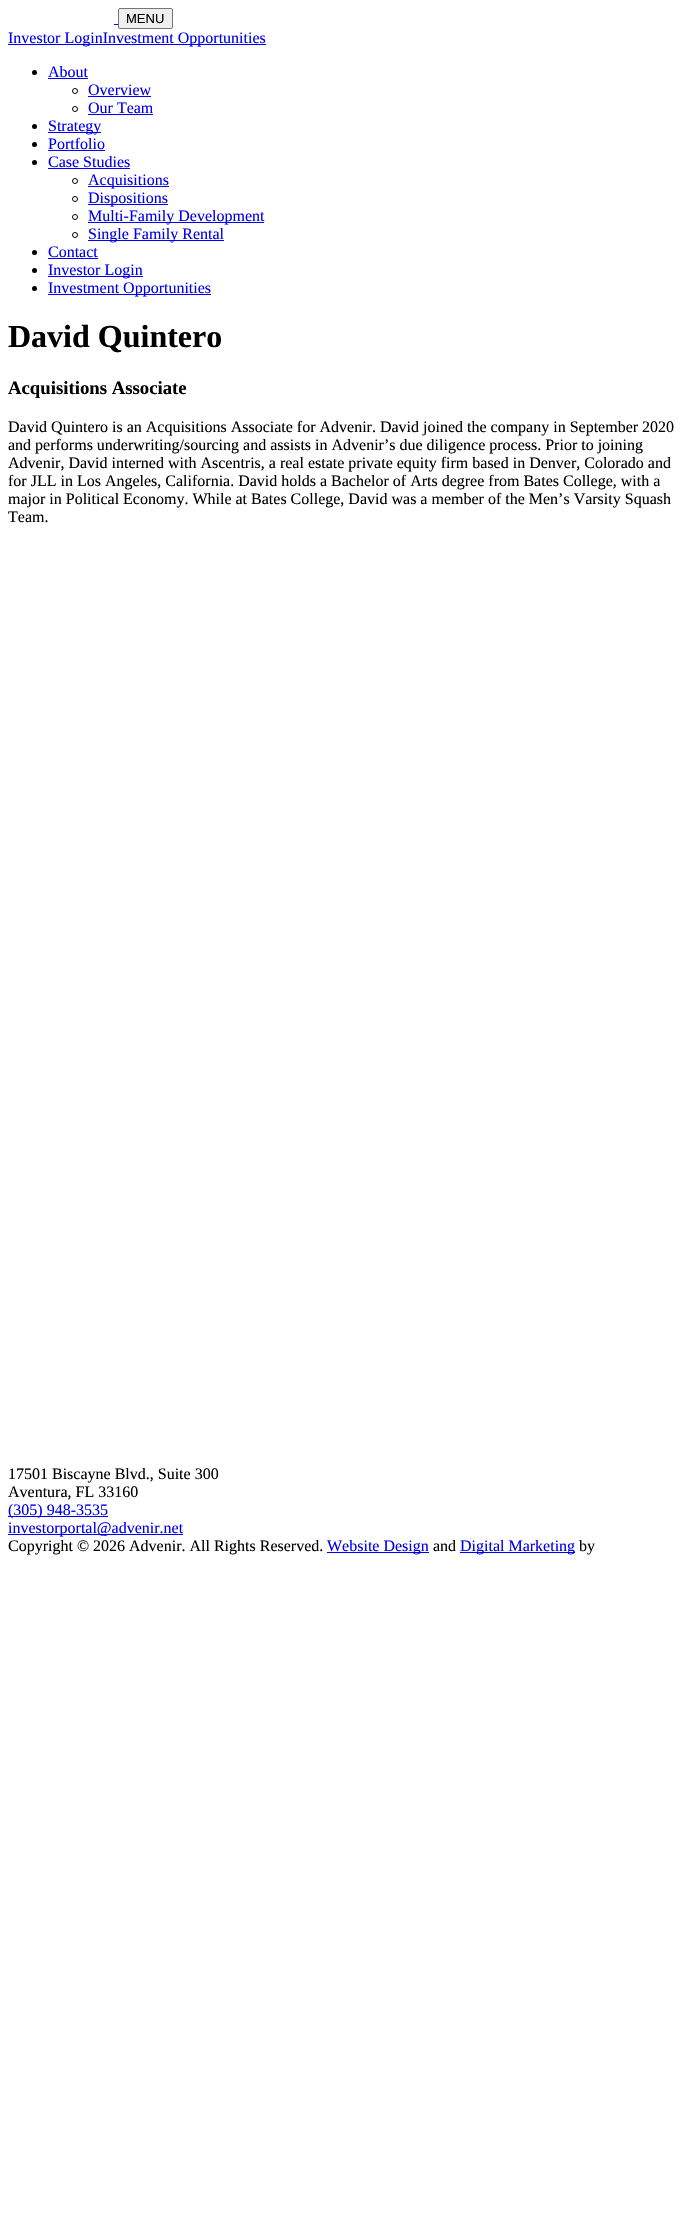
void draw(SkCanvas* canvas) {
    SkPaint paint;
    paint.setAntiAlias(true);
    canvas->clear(0xFFFFFFFF);
    paint.setColor(0xFFEFEFEF);
    canvas->drawRoundRect(SkRect::MakeXYWH(118.5f, 8.5f, 54, 20), 1.5f, 1.5f, paint);
    paint.setStyle(SkPaint::kStroke_Style);
    paint.setStrokeWidth(1);
    paint.setColor(0xFF767676);
    canvas->drawRoundRect(SkRect::MakeXYWH(118.5f, 8.5f, 54, 20), 1.5f, 1.5f, paint);
    SkFont font1(fontMgr->matchFamilyStyle("Liberation Sans", SkFontStyle::Normal()), 13);
    font1.setSubpixel(true);
    paint.setStyle(SkPaint::kFill_Style);
    paint.setColor(0xFF000000);
    canvas->drawString("MENU", 126, 23, font1, paint);
    paint.setColor(0xFF0000EE);
    canvas->drawRect(SkRect::MakeXYWH(114, 24, 4, 1), paint);
    canvas->drawRect(SkRect::MakeXYWH(8, 44, 258, 1), paint);
    SkFont font2(fontMgr->matchFamilyStyle("Liberation Serif", SkFontStyle::Normal()), 16);
    font2.setSubpixel(true);
    canvas->drawString("Investor LoginInvestment Opportunities", 8, 43, font2, paint);
    paint.setColor(0xFF000000);
    canvas->drawCircle(34.5f, 72.5f, 2.5f, paint);
    paint.setColor(0xFF0000EE);
    canvas->drawString("About", 48, 77, font2, paint);
    canvas->drawRect(SkRect::MakeXYWH(48, 78, 40, 1), paint);
    paint.setStyle(SkPaint::kStroke_Style);
    paint.setColor(0xFF000000);
    canvas->drawCircle(75, 91, 2.5f, paint);
    paint.setStyle(SkPaint::kFill_Style);
    paint.setColor(0xFF0000EE);
    canvas->drawString("Overview", 88, 95, font2, paint);
    canvas->drawRect(SkRect::MakeXYWH(88, 96, 63, 1), paint);
    paint.setStyle(SkPaint::kStroke_Style);
    paint.setColor(0xFF000000);
    canvas->drawCircle(75, 109, 2.5f, paint);
    paint.setStyle(SkPaint::kFill_Style);
    paint.setColor(0xFF0000EE);
    canvas->drawString("Our Team", 88, 113, font2, paint);
    canvas->drawRect(SkRect::MakeXYWH(88, 114, 65, 1), paint);
    paint.setColor(0xFF000000);
    canvas->drawCircle(34.5f, 126.5f, 2.5f, paint);
    paint.setColor(0xFF0000EE);
    canvas->drawRect(SkRect::MakeXYWH(48, 132, 53, 1), paint);
    canvas->drawString("Strategy", 48, 131, font2, paint);
    paint.setColor(0xFF000000);
    canvas->drawCircle(34.5f, 144.5f, 2.5f, paint);
    paint.setColor(0xFF0000EE);
    canvas->drawString("Portfolio", 48, 149, font2, paint);
    canvas->drawRect(SkRect::MakeXYWH(48, 150, 57, 1), paint);
    paint.setColor(0xFF000000);
    canvas->drawCircle(34.5f, 162.5f, 2.5f, paint);
    paint.setColor(0xFF0000EE);
    canvas->drawString("Case Studies", 48, 167, font2, paint);
    canvas->drawRect(SkRect::MakeXYWH(48, 168, 82, 1), paint);
    paint.setStyle(SkPaint::kStroke_Style);
    paint.setColor(0xFF000000);
    canvas->drawCircle(75, 181, 2.5f, paint);
    paint.setStyle(SkPaint::kFill_Style);
    paint.setColor(0xFF0000EE);
    canvas->drawRect(SkRect::MakeXYWH(88, 186, 81, 1), paint);
    canvas->drawString("Acquisitions", 88, 185, font2, paint);
    paint.setStyle(SkPaint::kStroke_Style);
    paint.setColor(0xFF000000);
    canvas->drawCircle(75, 199, 2.5f, paint);
    paint.setStyle(SkPaint::kFill_Style);
    paint.setColor(0xFF0000EE);
    canvas->drawRect(SkRect::MakeXYWH(88, 204, 80, 1), paint);
    canvas->drawString("Dispositions", 88, 203, font2, paint);
    paint.setStyle(SkPaint::kStroke_Style);
    paint.setColor(0xFF000000);
    canvas->drawCircle(75, 217, 2.5f, paint);
    paint.setStyle(SkPaint::kFill_Style);
    paint.setColor(0xFF0000EE);
    canvas->drawRect(SkRect::MakeXYWH(88, 222, 176, 1), paint);
    canvas->drawString("Multi-Family Development", 88, 221, font2, paint);
    paint.setStyle(SkPaint::kStroke_Style);
    paint.setColor(0xFF000000);
    canvas->drawCircle(75, 235, 2.5f, paint);
    paint.setStyle(SkPaint::kFill_Style);
    paint.setColor(0xFF0000EE);
    canvas->drawRect(SkRect::MakeXYWH(88, 240, 136, 1), paint);
    canvas->drawString("Single Family Rental", 88, 239, font2, paint);
    paint.setColor(0xFF000000);
    canvas->drawCircle(34.5f, 252.5f, 2.5f, paint);
    paint.setColor(0xFF0000EE);
    canvas->drawString("Contact", 48, 257, font2, paint);
    canvas->drawRect(SkRect::MakeXYWH(48, 258, 50, 1), paint);
    paint.setColor(0xFF000000);
    canvas->drawCircle(34.5f, 270.5f, 2.5f, paint);
    paint.setColor(0xFF0000EE);
    canvas->drawRect(SkRect::MakeXYWH(48, 276, 95, 1), paint);
    canvas->drawString("Investor Login", 48, 275, font2, paint);
    paint.setColor(0xFF000000);
    canvas->drawCircle(34.5f, 288.5f, 2.5f, paint);
    paint.setColor(0xFF0000EE);
    canvas->drawRect(SkRect::MakeXYWH(48, 294, 163, 1), paint);
    canvas->drawString("Investment Opportunities", 48, 293, font2, paint);
    SkFont font3(fontMgr->matchFamilyStyle("Liberation Serif", SkFontStyle::Bold()), 32);
    font3.setSubpixel(true);
    paint.setColor(0xFF000000);
    canvas->drawString("David Quintero", 8, 347, font3, paint);
    SkFont font4(fontMgr->matchFamilyStyle("Liberation Serif", SkFontStyle::Bold()), 18.75f);
    font4.setSubpixel(true);
    canvas->drawString("Acquisitions Associate", 8, 394, font4, paint);
    canvas->drawString("David Quintero is an Acquisitions Associate for Advenir. David joined the company in September 2020", 8, 432, font2, paint);
    canvas->drawString("and performs underwriting/sourcing and assists in Advenir’s due diligence process. Prior to joining", 8, 450, font2, paint);
    canvas->drawString("Advenir, David interned with Ascentris, a real estate private equity firm based in Denver, Colorado and", 8, 468, font2, paint);
    canvas->drawString("for JLL in Los Angeles, California. David holds a Bachelor of Arts degree from Bates College, with a", 8, 486, font2, paint);
    canvas->drawString("major in Political Economy. While at Bates College, David was a member of the Men’s Varsity Squash", 8, 504, font2, paint);
    canvas->drawString("Team.", 8, 522, font2, paint);
    canvas->drawString("17501 Biscayne Blvd., Suite 300", 8, 1479, font2, paint);
    canvas->drawString("Aventura, FL 33160", 8, 1497, font2, paint);
    paint.setColor(0xFF0000EE);
    canvas->drawRect(SkRect::MakeXYWH(8, 1516, 100, 1), paint);
    canvas->drawString("(305) 948-3535", 8, 1515, font2, paint);
    canvas->drawRect(SkRect::MakeXYWH(8, 1534, 175, 1), paint);
    canvas->drawString("investorportal@advenir.net", 8, 1533, font2, paint);
    paint.setColor(0xFF000000);
    canvas->drawString("Copyright © 2026 Advenir. All Rights Reserved.", 8, 1551, font2, paint);
    paint.setColor(0xFF0000EE);
    canvas->drawRect(SkRect::MakeXYWH(327, 1552, 102, 1), paint);
    canvas->drawString("Website Design", 327, 1551, font2, paint);
    paint.setColor(0xFF000000);
    canvas->drawString("and", 433, 1551, font2, paint);
    paint.setColor(0xFF0000EE);
    canvas->drawRect(SkRect::MakeXYWH(460, 1552, 115, 1), paint);
    canvas->drawString("Digital Marketing", 460, 1551, font2, paint);
    paint.setColor(0xFF000000);
    canvas->drawString("by", 579, 1551, font2, paint);
}
